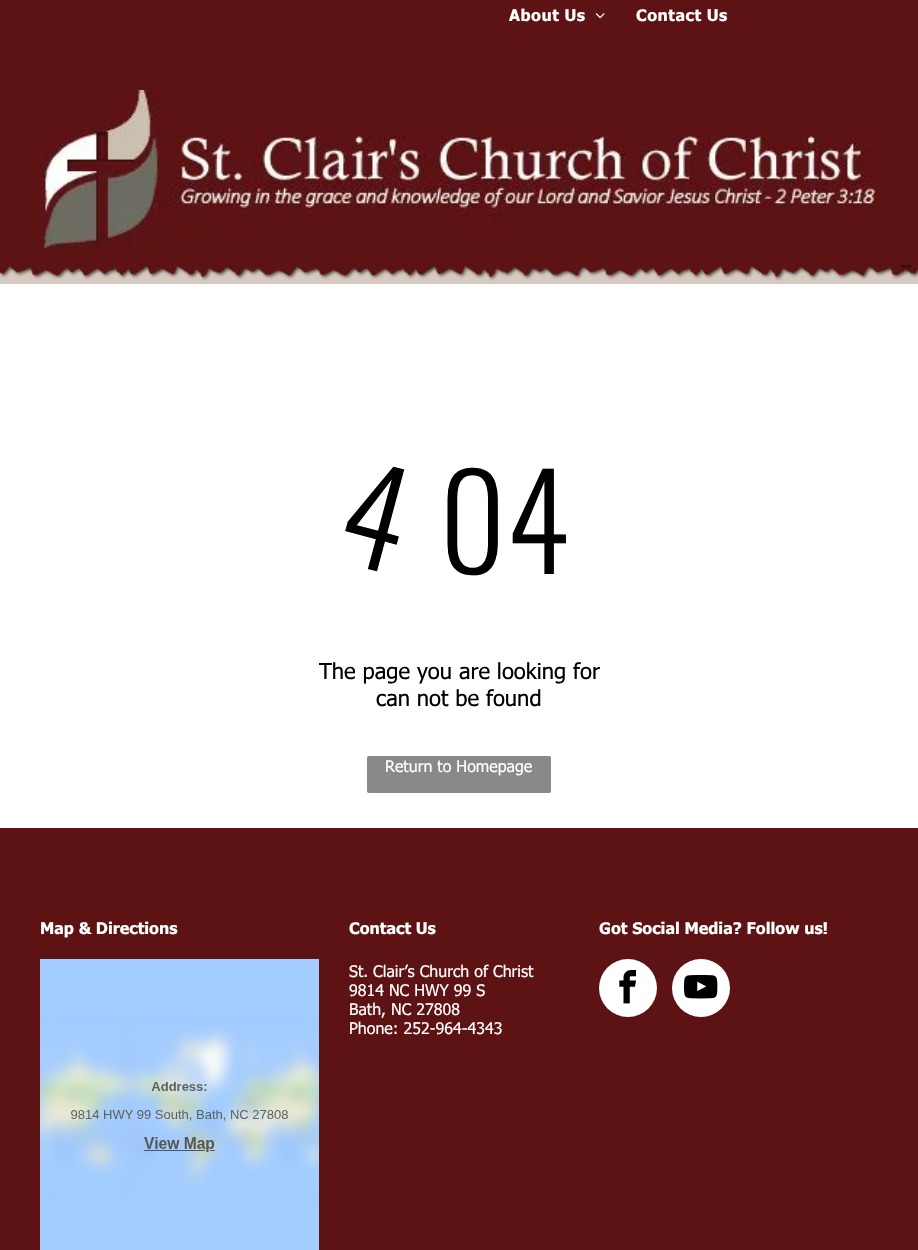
void draw(SkCanvas* canvas) {
    SkPaint paint;
    paint.setAntiAlias(true);
    auto spacedText = [&](const char* s, float x, float y, const SkFont& font, const SkPaint& ink, float letter, float word) {
        std::vector<SkGlyphID> glyphs(font.countText(s, strlen(s), SkTextEncoding::kUTF8));
        std::vector<float> xs(glyphs.size());
        font.textToGlyphs(s, strlen(s), SkTextEncoding::kUTF8, glyphs);
        font.getXPos(glyphs, xs, x);
        float extra = 0;
        for (size_t i = 0; i < glyphs.size(); i++) {
            xs[i] += extra;
            extra += letter + word * (glyphs[i] == font.unicharToGlyph(' '));
        }
        canvas->drawTextBlob(SkTextBlob::MakeFromPosHGlyphs(glyphs, xs, y, font), 0, 0, ink);
    };
    canvas->clear(0xFFFFFFFF);
    paint.setColor(0xFF5D1314);
    canvas->drawRect(SkRect::MakeXYWH(0, 0, 918, 263), paint);
    SkFont font1(fontMgr->matchFamilyStyle("Tahoma", SkFontStyle::Bold()), 16);
    font1.setSubpixel(true);
    paint.setColor(0xFFFFFFFF);
    spacedText("About Us", 509, 21, font1, paint, 0.5f, 0);
    canvas->drawImageRect(SkImages::DeferredFromEncodedData(SkData::MakeFromFileName("img1.png")), SkRect::MakeXYWH(595, 13, 10, 6), SkSamplingOptions());
    spacedText("Contact Us", 636, 21, font1, paint, 0.5f, 0);
    canvas->drawImageRect(SkImages::DeferredFromEncodedData(SkData::MakeFromFileName("img2.png")), SkRect::MakeXYWH(44, 90, 831, 158), SkSamplingOptions());
    canvas->drawImageRect(SkImages::DeferredFromEncodedData(SkData::MakeFromFileName("img3.png")), SkRect::MakeXYWH(0, 263, 918, 21), SkSamplingOptions());
    SkFont font2(fontMgr->matchFamilyStyle("Oswald", SkFontStyle(300, SkFontStyle::kNormal_Width, SkFontStyle::kUpright_Slant)), 130);
    font2.setSubpixel(true);
    paint.setColor(0xFF000000);
    canvas->save();
    canvas->rotate(15, 331, 559);
    canvas->drawString("4", 331, 559, font2, paint);
    canvas->restore();
    canvas->drawString("04", 439, 574, font2, paint);
    SkFont font3(fontMgr->matchFamilyStyle("Tahoma", SkFontStyle::Normal()), 22);
    font3.setSubpixel(true);
    canvas->drawString("The page you are looking for", 319, 679, font3, paint);
    canvas->drawString("can not be found", 376, 706, font3, paint);
    paint.setColor(0xFF898989);
    canvas->drawRoundRect(SkRect::MakeXYWH(367, 756, 184, 37), 2, 2, paint);
    SkFont font4(fontMgr->matchFamilyStyle("Tahoma", SkFontStyle::Normal()), 16);
    font4.setSubpixel(true);
    paint.setColor(0xFFFFFFFF);
    canvas->drawString("Return to Homepage", 385, 772, font4, paint);
    paint.setColor(0xFF5D1314);
    canvas->drawRect(SkRect::MakeXYWH(0, 828, 918, 422), paint);
    paint.setColor(0xFFFFFFFF);
    canvas->drawString("Map & Directions", 40, 934, font1, paint);
    canvas->drawImageRect(SkImages::DeferredFromEncodedData(SkData::MakeFromFileName("img4.png")), SkRect::MakeXYWH(40, 959, 279, 291), SkSamplingOptions());
    canvas->drawString("Contact Us", 349, 934, font1, paint);
    canvas->drawString("St. Clair’s Church of Christ", 349, 977, font4, paint);
    canvas->drawString("9814 NC HWY 99 S", 349, 996, font4, paint);
    canvas->drawString("Bath, NC 27808", 349, 1015, font4, paint);
    canvas->drawString("Phone: 252-964-4343", 349, 1034, font4, paint);
    canvas->drawString("Got Social Media? Follow us!", 599, 934, font1, paint);
    canvas->drawCircle(628, 988, 29, paint);
    canvas->drawImageRect(SkImages::DeferredFromEncodedData(SkData::MakeFromFileName("img5.png")), SkRect::MakeXYWH(619, 970, 18, 34), SkSamplingOptions());
    canvas->drawCircle(701, 988, 29, paint);
    canvas->drawImageRect(SkImages::DeferredFromEncodedData(SkData::MakeFromFileName("img6.png")), SkRect::MakeXYWH(684, 975, 34, 24), SkSamplingOptions());
}
